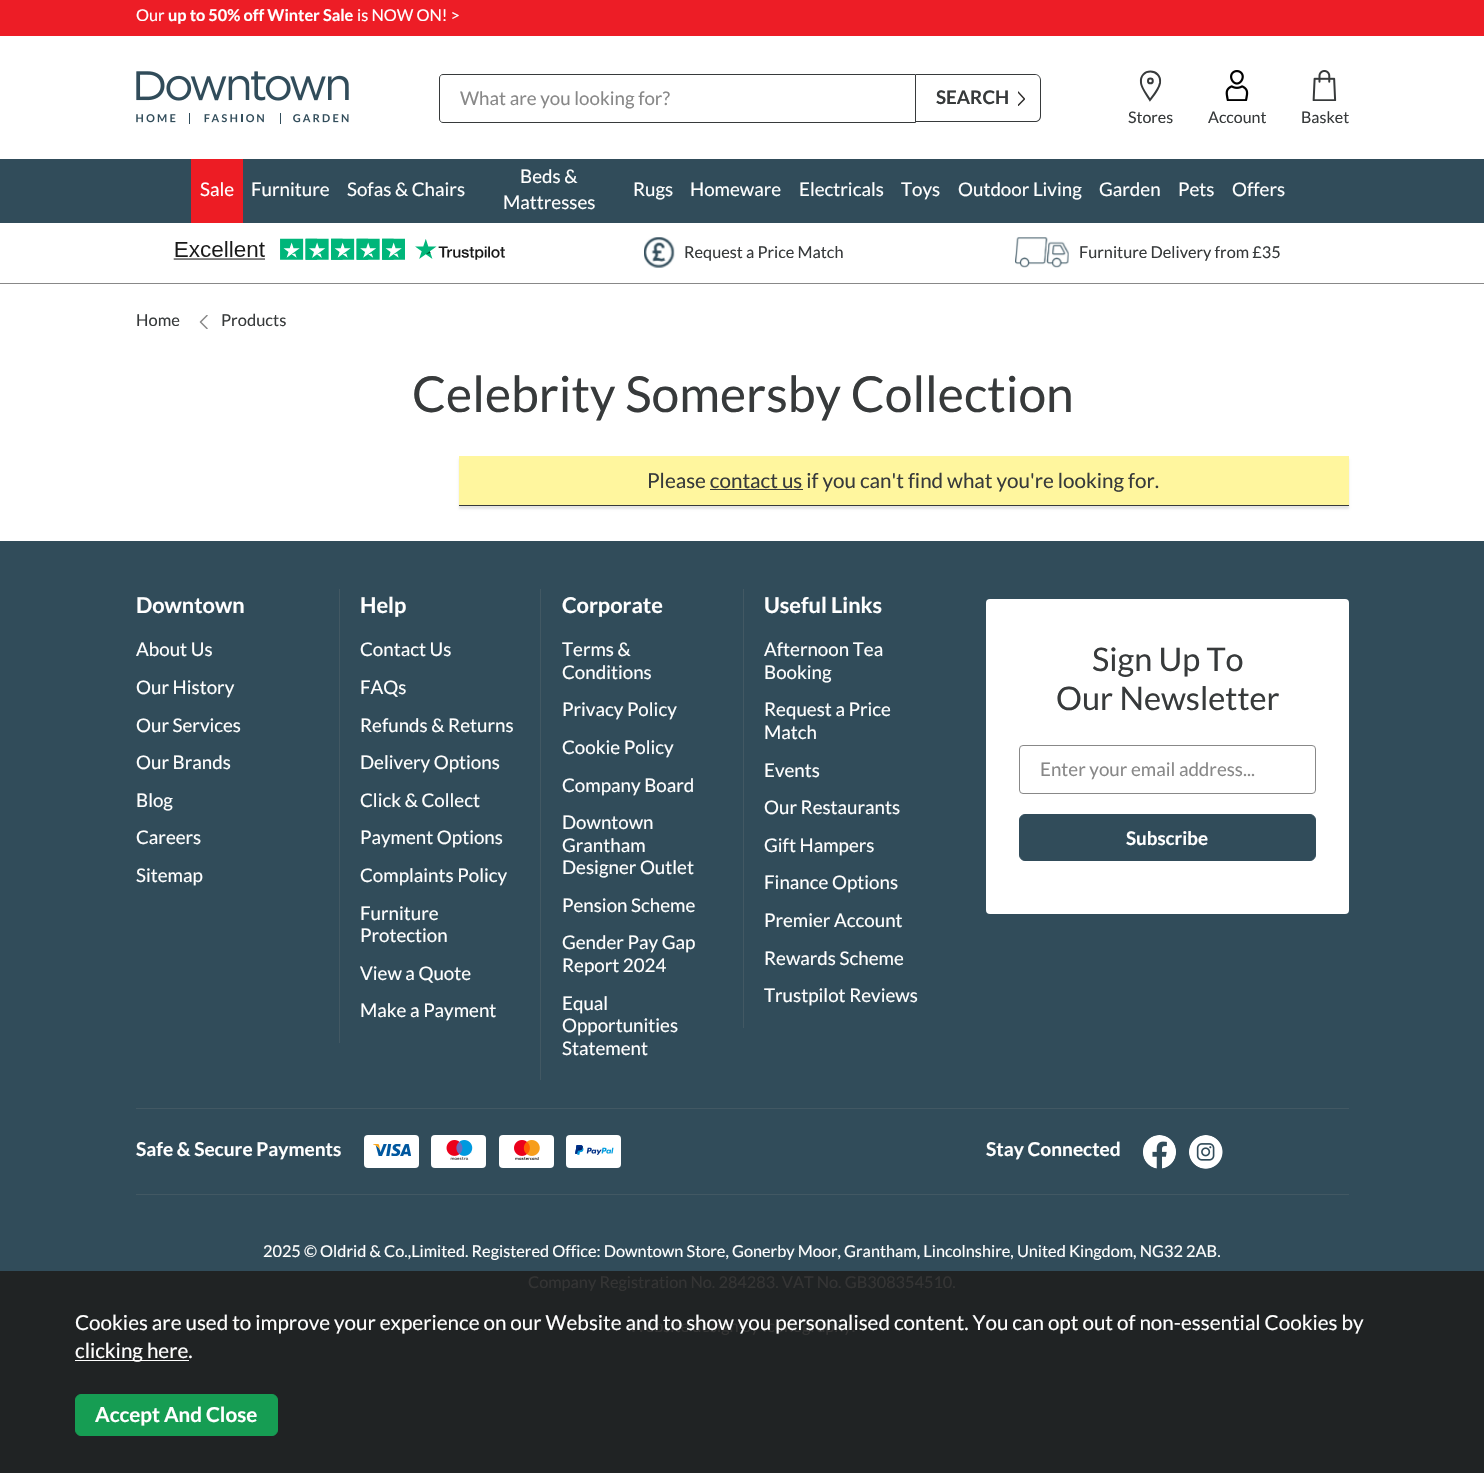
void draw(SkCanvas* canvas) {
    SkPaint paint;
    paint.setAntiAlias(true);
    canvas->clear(0xFFFFFFFF);
    paint.setColor(0xFFED1D26);
    canvas->drawRect(SkRect::MakeXYWH(0, 0, 1484, 36), paint);
    SkFont font1(fontMgr->matchFamilyStyle("Lato", SkFontStyle::Normal()), 16.3f);
    font1.setSubpixel(true);
    paint.setColor(0xFFFFFFFF);
    canvas->drawString("Our", 136, 21, font1, paint);
    SkFont font2(fontMgr->matchFamilyStyle("Lato", SkFontStyle::Bold()), 16.3f);
    font2.setSubpixel(true);
    canvas->drawString("up to 50% off Winter Sale", 168, 21, font2, paint);
    canvas->drawString("is NOW ON! >", 357, 21, font1, paint);
    canvas->drawImageRect(SkImages::DeferredFromEncodedData(SkData::MakeFromFileName("img1.png")), SkRect::MakeXYWH(136, 71, 213, 53), SkSamplingOptions());
    paint.setStyle(SkPaint::kStroke_Style);
    paint.setStrokeWidth(1);
    paint.setColor(0xFF373A3B);
    canvas->drawPath(SkPathBuilder().moveTo(443, 74.5f).lineTo(915.5f, 74.5f).lineTo(915.5f, 122.5f).lineTo(443, 122.5f).cubicTo(441, 122.5f, 439.5f, 121, 439.5f, 119).lineTo(439.5f, 78).cubicTo(439.5f, 76, 441, 74.5f, 443, 74.5f).close().detach(), paint);
    SkFont font3(fontMgr->matchFamilyStyle("Lato", SkFontStyle::Normal()), 18.75f);
    font3.setSubpixel(true);
    paint.setStyle(SkPaint::kFill_Style);
    paint.setColor(0xFF888888);
    canvas->drawString("What are you looking for?", 460, 105, font3, paint);
    paint.setColor(0xFF373A3B);
    canvas->drawPath(SkPathBuilder(SkPathFillType::kEvenOdd).moveTo(916, 74).lineTo(1035, 74).cubicTo(1038, 74, 1041, 77, 1041, 80).lineTo(1041, 116).cubicTo(1041, 120, 1038, 122, 1035, 122).lineTo(916, 122).close().moveTo(916, 75).lineTo(1035, 75).cubicTo(1038, 75, 1040, 77, 1040, 80).lineTo(1040, 116).cubicTo(1040, 119, 1038, 121, 1035, 121).lineTo(916, 121).close().detach(), paint);
    SkFont font4(fontMgr->matchFamilyStyle("Lato", SkFontStyle::Bold()), 18.75f);
    font4.setSubpixel(true);
    canvas->drawString("SEARCH", 936, 104, font4, paint);
    canvas->save();
    canvas->clipRect(SkRect::MakeXYWH(1018, 91, 7, 15));
    paint.setStyle(SkPaint::kStroke_Style);
    paint.setStrokeWidth(1.5f);
    paint.setStrokeCap(SkPaint::kRound_Cap);
    paint.setStrokeJoin(SkPaint::kRound_Join);
    paint.setColor(0xFF2C2A29);
    canvas->drawPath(SkPathBuilder().moveTo(1018, 92).lineTo(1024.5f, 99).lineTo(1018, 105.5f).detach(), paint);
    canvas->restore();
    paint.setStrokeWidth(2);
    paint.setStrokeCap(SkPaint::kButt_Cap);
    paint.setStrokeJoin(SkPaint::kMiter_Join);
    paint.setColor(0xFF373A3B);
    canvas->drawPath(SkPathBuilder().moveTo(1160, 83).cubicTo(1162, 68, 1139, 67.5f, 1141, 83).cubicTo(1141.5f, 88.5f, 1147.5f, 95.5f, 1150, 100).cubicTo(1153.5f, 95.5f, 1159, 89, 1160, 83).close().detach(), paint);
    canvas->drawCircle(1150.4f, 80.9f, 2.4f, paint);
    SkFont font5(fontMgr->matchFamilyStyle("Lato", SkFontStyle::Normal()), 16);
    font5.setSubpixel(true);
    paint.setStyle(SkPaint::kFill_Style);
    canvas->drawString("Stores", 1128, 123, font5, paint);
    canvas->drawImageRect(SkImages::DeferredFromEncodedData(SkData::MakeFromFileName("img2.png")), SkRect::MakeXYWH(1225, 70, 24, 31), SkSamplingOptions());
    canvas->drawString("Account", 1208, 123, font5, paint);
    canvas->drawImageRect(SkImages::DeferredFromEncodedData(SkData::MakeFromFileName("img3.png")), SkRect::MakeXYWH(1312, 70, 25, 31), SkSamplingOptions());
    canvas->drawString("Basket", 1301, 123, font5, paint);
    paint.setColor(0xFF314C5A);
    canvas->drawRect(SkRect::MakeXYWH(0, 159, 1484, 64), paint);
    paint.setColor(0xFFED1C24);
    canvas->drawRect(SkRect::MakeXYWH(191, 159, 52, 64), paint);
    paint.setColor(0xFFFFFFFF);
    canvas->drawString("Sale", 200, 196, font3, paint);
    canvas->drawString("Furniture", 251, 196, font3, paint);
    canvas->drawString("Sofas & Chairs", 347, 196, font3, paint);
    canvas->drawString("Beds &", 520, 183, font3, paint);
    canvas->drawString("Mattresses", 503, 209, font3, paint);
    canvas->drawString("Rugs", 633, 196, font3, paint);
    canvas->drawString("Homeware", 690, 196, font3, paint);
    canvas->drawString("Electricals", 799, 196, font3, paint);
    canvas->drawString("Toys", 901, 196, font3, paint);
    canvas->drawString("Outdoor Living", 958, 196, font3, paint);
    canvas->drawString("Garden", 1099, 196, font3, paint);
    canvas->drawString("Pets", 1178, 196, font3, paint);
    canvas->drawString("Offers", 1232, 196, font3, paint);
    paint.setColor(0xFF888888);
    canvas->drawRect(SkRect::MakeXYWH(0, 283, 1484, 1), paint);
    canvas->drawImageRect(SkImages::DeferredFromEncodedData(SkData::MakeFromFileName("img4.png")), SkRect::MakeXYWH(173, 238, 332, 22), SkSamplingOptions());
    canvas->drawImageRect(SkImages::DeferredFromEncodedData(SkData::MakeFromFileName("img5.png")), SkRect::MakeXYWH(644, 237, 31, 31), SkSamplingOptions());
    paint.setColor(0xFF373A3B);
    canvas->drawString("Request a Price Match", 684, 258, font1, paint);
    canvas->drawImageRect(SkImages::DeferredFromEncodedData(SkData::MakeFromFileName("img6.png")), SkRect::MakeXYWH(1015, 237, 54, 31), SkSamplingOptions());
    canvas->drawString("Furniture Delivery from £35", 1079, 258, font1, paint);
    SkFont font6(fontMgr->matchFamilyStyle("Lato", SkFontStyle::Normal()), 16.5f);
    font6.setSubpixel(true);
    canvas->drawString("Home", 136, 326, font6, paint);
    canvas->drawString("Products", 221, 326, font6, paint);
    canvas->save();
    canvas->clipRect(SkRect::MakeXYWH(199, 315, 10, 14));
    paint.setStyle(SkPaint::kStroke_Style);
    paint.setStrokeWidth(1.5f);
    paint.setStrokeCap(SkPaint::kRound_Cap);
    paint.setStrokeJoin(SkPaint::kRound_Join);
    paint.setColor(0xFF888888);
    canvas->drawPath(SkPathBuilder().moveTo(207, 328.5f).lineTo(200.5f, 322).lineTo(207, 315.5f).detach(), paint);
    canvas->restore();
    SkFont font7(fontMgr->matchFamilyStyle("Lato", SkFontStyle::Normal()), 49.75f);
    font7.setSubpixel(true);
    paint.setStyle(SkPaint::kFill_Style);
    paint.setColor(0xFF373A3B);
    canvas->drawString("Celebrity Somersby Collection", 412, 412, font7, paint);
    paint.setColor(0x1A000000);
    paint.setMaskFilter(SkMaskFilter::MakeBlur(kNormal_SkBlurStyle, 1));
    canvas->drawRect(SkRect::MakeXYWH(459, 459, 890, 50), paint);
    paint.setMaskFilter(nullptr);
    paint.setColor(0xFFFFF69E);
    canvas->drawRect(SkRect::MakeXYWH(459, 456, 890, 49), paint);
    paint.setColor(0xFF373A3B);
    canvas->drawRect(SkRect::MakeXYWH(459, 505, 890, 1), paint);
    SkFont font8(fontMgr->matchFamilyStyle("Lato", SkFontStyle::Normal()), 20.62f);
    font8.setSubpixel(true);
    canvas->drawString("Please contact us if you can't find what you're looking for.", 647, 488, font8, paint);
    canvas->drawRect(SkRect::MakeXYWH(710, 489, 93, 1), paint);
    paint.setColor(0xFF314C5A);
    canvas->drawRect(SkRect::MakeXYWH(0, 541, 1484, 730), paint);
    paint.setColor(0xFF202324);
    canvas->drawRect(SkRect::MakeXYWH(0, 1271, 1484, 202), paint);
    SkFont font9(fontMgr->matchFamilyStyle("Lato", SkFontStyle::Bold()), 21.75f);
    font9.setSubpixel(true);
    paint.setColor(0xFFFFFFFF);
    canvas->drawString("Downtown", 136, 613, font9, paint);
    canvas->drawString("About Us", 136, 656, font3, paint);
    canvas->drawString("Our History", 136, 694, font3, paint);
    canvas->drawString("Our Services", 136, 732, font3, paint);
    canvas->drawString("Our Brands", 136, 769, font3, paint);
    canvas->drawString("Blog", 136, 807, font3, paint);
    canvas->drawString("Careers", 136, 844, font3, paint);
    canvas->drawString("Sitemap", 136, 882, font3, paint);
    paint.setColor(0xFF425863);
    canvas->drawRect(SkRect::MakeXYWH(339, 589, 1, 454), paint);
    paint.setColor(0xFFFFFFFF);
    canvas->drawString("Help", 360, 613, font9, paint);
    canvas->drawString("Contact Us", 360, 656, font3, paint);
    canvas->drawString("FAQs", 360, 694, font3, paint);
    canvas->drawString("Refunds & Returns", 360, 732, font3, paint);
    canvas->drawString("Delivery Options", 360, 769, font3, paint);
    canvas->drawString("Click & Collect", 360, 807, font3, paint);
    canvas->drawString("Payment Options", 360, 844, font3, paint);
    canvas->drawString("Complaints Policy", 360, 882, font3, paint);
    canvas->drawString("Furniture", 360, 920, font3, paint);
    canvas->drawString("Protection", 360, 942, font3, paint);
    canvas->drawString("View a Quote", 360, 980, font3, paint);
    canvas->drawString("Make a Payment", 360, 1017, font3, paint);
    paint.setColor(0xFF425863);
    canvas->drawRect(SkRect::MakeXYWH(540, 589, 1, 491), paint);
    paint.setColor(0xFFFFFFFF);
    canvas->drawString("Corporate", 562, 613, font9, paint);
    canvas->drawString("Terms &", 562, 656, font3, paint);
    canvas->drawString("Conditions", 562, 679, font3, paint);
    canvas->drawString("Privacy Policy", 562, 716, font3, paint);
    canvas->drawString("Cookie Policy", 562, 754, font3, paint);
    canvas->drawString("Company Board", 562, 792, font3, paint);
    canvas->drawString("Downtown", 562, 829, font3, paint);
    canvas->drawString("Grantham", 562, 852, font3, paint);
    canvas->drawString("Designer Outlet", 562, 874, font3, paint);
    canvas->drawString("Pension Scheme", 562, 912, font3, paint);
    canvas->drawString("Gender Pay Gap", 562, 949, font3, paint);
    canvas->drawString("Report 2024", 562, 972, font3, paint);
    canvas->drawString("Equal", 562, 1010, font3, paint);
    canvas->drawString("Opportunities", 562, 1032, font3, paint);
    canvas->drawString("Statement", 562, 1055, font3, paint);
    paint.setColor(0xFF425863);
    canvas->drawRect(SkRect::MakeXYWH(743, 589, 1, 439), paint);
    paint.setColor(0xFFFFFFFF);
    canvas->drawString("Useful Links", 764, 613, font9, paint);
    canvas->drawString("Afternoon Tea", 764, 656, font3, paint);
    canvas->drawString("Booking", 764, 679, font3, paint);
    canvas->drawString("Request a Price", 764, 716, font3, paint);
    canvas->drawString("Match", 764, 739, font3, paint);
    canvas->drawString("Events", 764, 777, font3, paint);
    canvas->drawString("Our Restaurants", 764, 814, font3, paint);
    canvas->drawString("Gift Hampers", 764, 852, font3, paint);
    canvas->drawString("Finance Options", 764, 889, font3, paint);
    canvas->drawString("Premier Account", 764, 927, font3, paint);
    canvas->drawString("Rewards Scheme", 764, 965, font3, paint);
    canvas->drawString("Trustpilot Reviews", 764, 1002, font3, paint);
    canvas->drawRoundRect(SkRect::MakeXYWH(986, 599, 363, 315), 4, 4, paint);
    SkFont font10(fontMgr->matchFamilyStyle("Lato", SkFontStyle::Normal()), 32.5f);
    font10.setSubpixel(true);
    paint.setColor(0xFF373A3B);
    canvas->drawString("Sign Up To", 1092, 671, font10, paint);
    canvas->drawString("Our Newsletter", 1056, 710, font10, paint);
    paint.setStyle(SkPaint::kStroke_Style);
    paint.setStrokeWidth(1);
    paint.setStrokeCap(SkPaint::kButt_Cap);
    paint.setStrokeJoin(SkPaint::kMiter_Join);
    paint.setColor(0xFF888888);
    canvas->drawRoundRect(SkRect::MakeXYWH(1019.5f, 745.5f, 296, 48), 3.5f, 3.5f, paint);
    paint.setStyle(SkPaint::kFill_Style);
    canvas->drawString("Enter your email address...", 1040, 776, font3, paint);
    paint.setColor(0xFF314C5A);
    canvas->drawRoundRect(SkRect::MakeXYWH(1019.5f, 814.5f, 296, 46), 5.5f, 5.5f, paint);
    paint.setStyle(SkPaint::kStroke_Style);
    canvas->drawRoundRect(SkRect::MakeXYWH(1019.5f, 814.5f, 296, 46), 5.5f, 5.5f, paint);
    paint.setStyle(SkPaint::kFill_Style);
    paint.setColor(0xFFFFFFFF);
    canvas->drawString("Subscribe", 1126, 845, font4, paint);
    paint.setColor(0xFF425863);
    canvas->drawRect(SkRect::MakeXYWH(136, 1108, 1213, 1), paint);
    canvas->drawRect(SkRect::MakeXYWH(136, 1194, 1213, 1), paint);
    SkFont font11(fontMgr->matchFamilyStyle("Lato", SkFontStyle::Bold()), 19.1f);
    font11.setSubpixel(true);
    paint.setColor(0xFFFFFFFF);
    canvas->drawString("Safe & Secure Payments", 136, 1156, font11, paint);
    canvas->drawRoundRect(SkRect::MakeXYWH(364, 1135, 55, 33), 4, 4, paint);
    canvas->drawImageRect(SkImages::DeferredFromEncodedData(SkData::MakeFromFileName("img7.png")), SkRect::MakeXYWH(373, 1144, 38, 12), SkSamplingOptions());
    canvas->drawRoundRect(SkRect::MakeXYWH(431, 1135, 55, 33), 4, 4, paint);
    canvas->drawImageRect(SkImages::DeferredFromEncodedData(SkData::MakeFromFileName("img8.png")), SkRect::MakeXYWH(446, 1140, 27, 20), SkSamplingOptions());
    canvas->drawRoundRect(SkRect::MakeXYWH(499, 1135, 55, 33), 4, 4, paint);
    canvas->drawImageRect(SkImages::DeferredFromEncodedData(SkData::MakeFromFileName("img9.png")), SkRect::MakeXYWH(514, 1140, 26, 20), SkSamplingOptions());
    canvas->drawRoundRect(SkRect::MakeXYWH(566, 1135, 55, 33), 4, 4, paint);
    canvas->drawImageRect(SkImages::DeferredFromEncodedData(SkData::MakeFromFileName("img10.png")), SkRect::MakeXYWH(575, 1145, 39, 10), SkSamplingOptions());
    canvas->drawString("Stay Connected", 986, 1156, font11, paint);
    canvas->drawImageRect(SkImages::DeferredFromEncodedData(SkData::MakeFromFileName("img11.png")), SkRect::MakeXYWH(1143, 1135, 33, 34), SkSamplingOptions());
    canvas->drawImageRect(SkImages::DeferredFromEncodedData(SkData::MakeFromFileName("img12.png")), SkRect::MakeXYWH(1189, 1135, 34, 34), SkSamplingOptions());
    canvas->drawString("2025 © Oldrid & Co.,Limited. Registered Office: Downtown Store, Gonerby Moor, Grantham, Lincolnshire, United Kingdom, NG32 2AB.", 263, 1257, font1, paint);
    paint.setColor(0xFF343434);
    canvas->drawString("Company Registration No. 284283. VAT No. GB308354510.", 528, 1288, font1, paint);
    canvas->drawString("Website design by Iconography.", 629, 1332, font1, paint);
    paint.setColor(0xFFFFFFFF);
    canvas->drawString("Cookies are used to improve your experience on our Website and to show you personalised content. You can opt out of non-essential Cookies by", 75, 1330, font8, paint);
    canvas->drawRect(SkRect::MakeXYWH(75, 1360, 114, 1), paint);
    canvas->drawString("clicking here.", 75, 1358, font8, paint);
    paint.setColor(0xFF169D53);
    canvas->drawRoundRect(SkRect::MakeXYWH(75.5f, 1394.5f, 202, 41), 5.5f, 5.5f, paint);
    paint.setStyle(SkPaint::kStroke_Style);
    canvas->drawRoundRect(SkRect::MakeXYWH(75.5f, 1394.5f, 202, 41), 5.5f, 5.5f, paint);
    SkFont font12(fontMgr->matchFamilyStyle("Lato", SkFontStyle::Bold()), 20.62f);
    font12.setSubpixel(true);
    paint.setStyle(SkPaint::kFill_Style);
    paint.setColor(0xFFFFFFFF);
    canvas->drawString("Accept And Close", 95, 1422, font12, paint);
}
